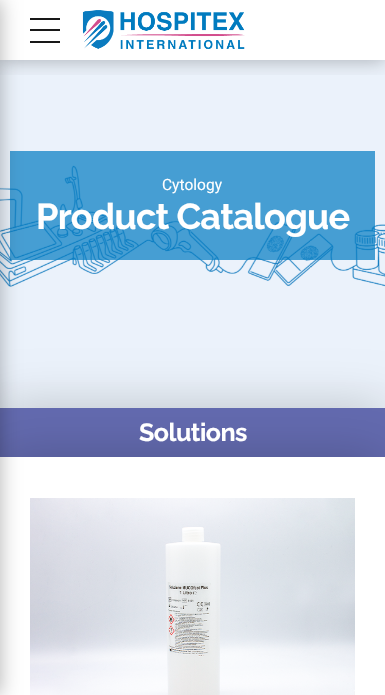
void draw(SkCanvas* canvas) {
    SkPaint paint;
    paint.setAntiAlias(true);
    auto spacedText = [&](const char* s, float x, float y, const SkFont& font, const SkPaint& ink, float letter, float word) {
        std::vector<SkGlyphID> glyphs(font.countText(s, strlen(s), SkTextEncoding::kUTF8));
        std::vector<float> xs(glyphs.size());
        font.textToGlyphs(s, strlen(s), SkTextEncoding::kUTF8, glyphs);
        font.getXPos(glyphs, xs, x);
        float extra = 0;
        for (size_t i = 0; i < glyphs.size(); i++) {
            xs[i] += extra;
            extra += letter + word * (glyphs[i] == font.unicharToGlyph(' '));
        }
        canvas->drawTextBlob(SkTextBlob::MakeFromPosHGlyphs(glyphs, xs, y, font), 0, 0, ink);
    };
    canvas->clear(0xFFFFFFFF);
    canvas->drawImageRect(SkImages::DeferredFromEncodedData(SkData::MakeFromFileName("img2.png")), SkRect::MakeXYWH(0, 60, 385, 348), SkSamplingOptions());
    canvas->save();
    canvas->clipRect(SkRect::MakeXYWH(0, 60, 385, 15));
    paint.setColor(0x4D000000);
    paint.setMaskFilter(SkMaskFilter::MakeBlur(kNormal_SkBlurStyle, 10));
    canvas->drawRect(SkRect::MakeXYWH(0, 0, 385, 60), paint);
    paint.setMaskFilter(nullptr);
    canvas->restore();
    paint.setColor(0xFF181818);
    canvas->drawRect(SkRect::MakeXYWH(30, 18, 30, 2), paint);
    canvas->drawRect(SkRect::MakeXYWH(30, 29, 30, 2), paint);
    canvas->drawRect(SkRect::MakeXYWH(30, 41, 30, 2), paint);
    canvas->drawImageRect(SkImages::DeferredFromEncodedData(SkData::MakeFromFileName("img1.png")), SkRect::MakeXYWH(82, 10, 163, 39), SkSamplingOptions());
    paint.setColor(0xB3007BC2);
    canvas->drawRect(SkRect::MakeXYWH(10, 151, 365, 109), paint);
    paint.setColor(0x33000000);
    paint.setMaskFilter(SkMaskFilter::MakeBlur(kNormal_SkBlurStyle, 25));
    canvas->drawRect(SkRect::MakeXYWH(0, 408, 385, 49), paint);
    paint.setMaskFilter(nullptr);
    paint.setColor(0xFF636AAF);
    canvas->drawRect(SkRect::MakeXYWH(0, 408, 385, 49), paint);
    paint.setColor(0x33000000);
    paint.setMaskFilter(SkMaskFilter::MakeBlur(kNormal_SkBlurStyle, 25));
    canvas->drawRect(SkRect::MakeXYWH(0, 457, 385, 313), paint);
    paint.setMaskFilter(nullptr);
    paint.setColor(0xFFFFFFFF);
    canvas->drawRect(SkRect::MakeXYWH(0, 457, 385, 238), paint);
    canvas->drawImageRect(SkImages::DeferredFromEncodedData(SkData::MakeFromFileName("img3.png")), SkRect::MakeXYWH(30, 498, 325, 197), SkSamplingOptions());
    paint.setColor(0x4D000000);
    paint.setMaskFilter(SkMaskFilter::MakeBlur(kNormal_SkBlurStyle, 10));
    canvas->drawRect(SkRect::MakeXYWH(-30, 0, 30, 695), paint);
    paint.setMaskFilter(nullptr);
    SkFont font1(fontMgr->matchFamilyStyle("Roboto", SkFontStyle::Normal()), 15.5f);
    font1.setSubpixel(true);
    paint.setColor(0xFFFFFFFF);
    canvas->drawString("Cytology", 162, 190, font1, paint);
    SkFont font2(fontMgr->matchFamilyStyle("Raleway", SkFontStyle::Bold()), 36);
    font2.setSubpixel(true);
    spacedText("Product Catalogue", 36, 229, font2, paint, -0.75f, 0);
    SkFont font3(fontMgr->matchFamilyStyle("Raleway", SkFontStyle::Bold()), 25);
    font3.setSubpixel(true);
    spacedText("Solutions", 139, 441, font3, paint, -0.5f, 0);
}
